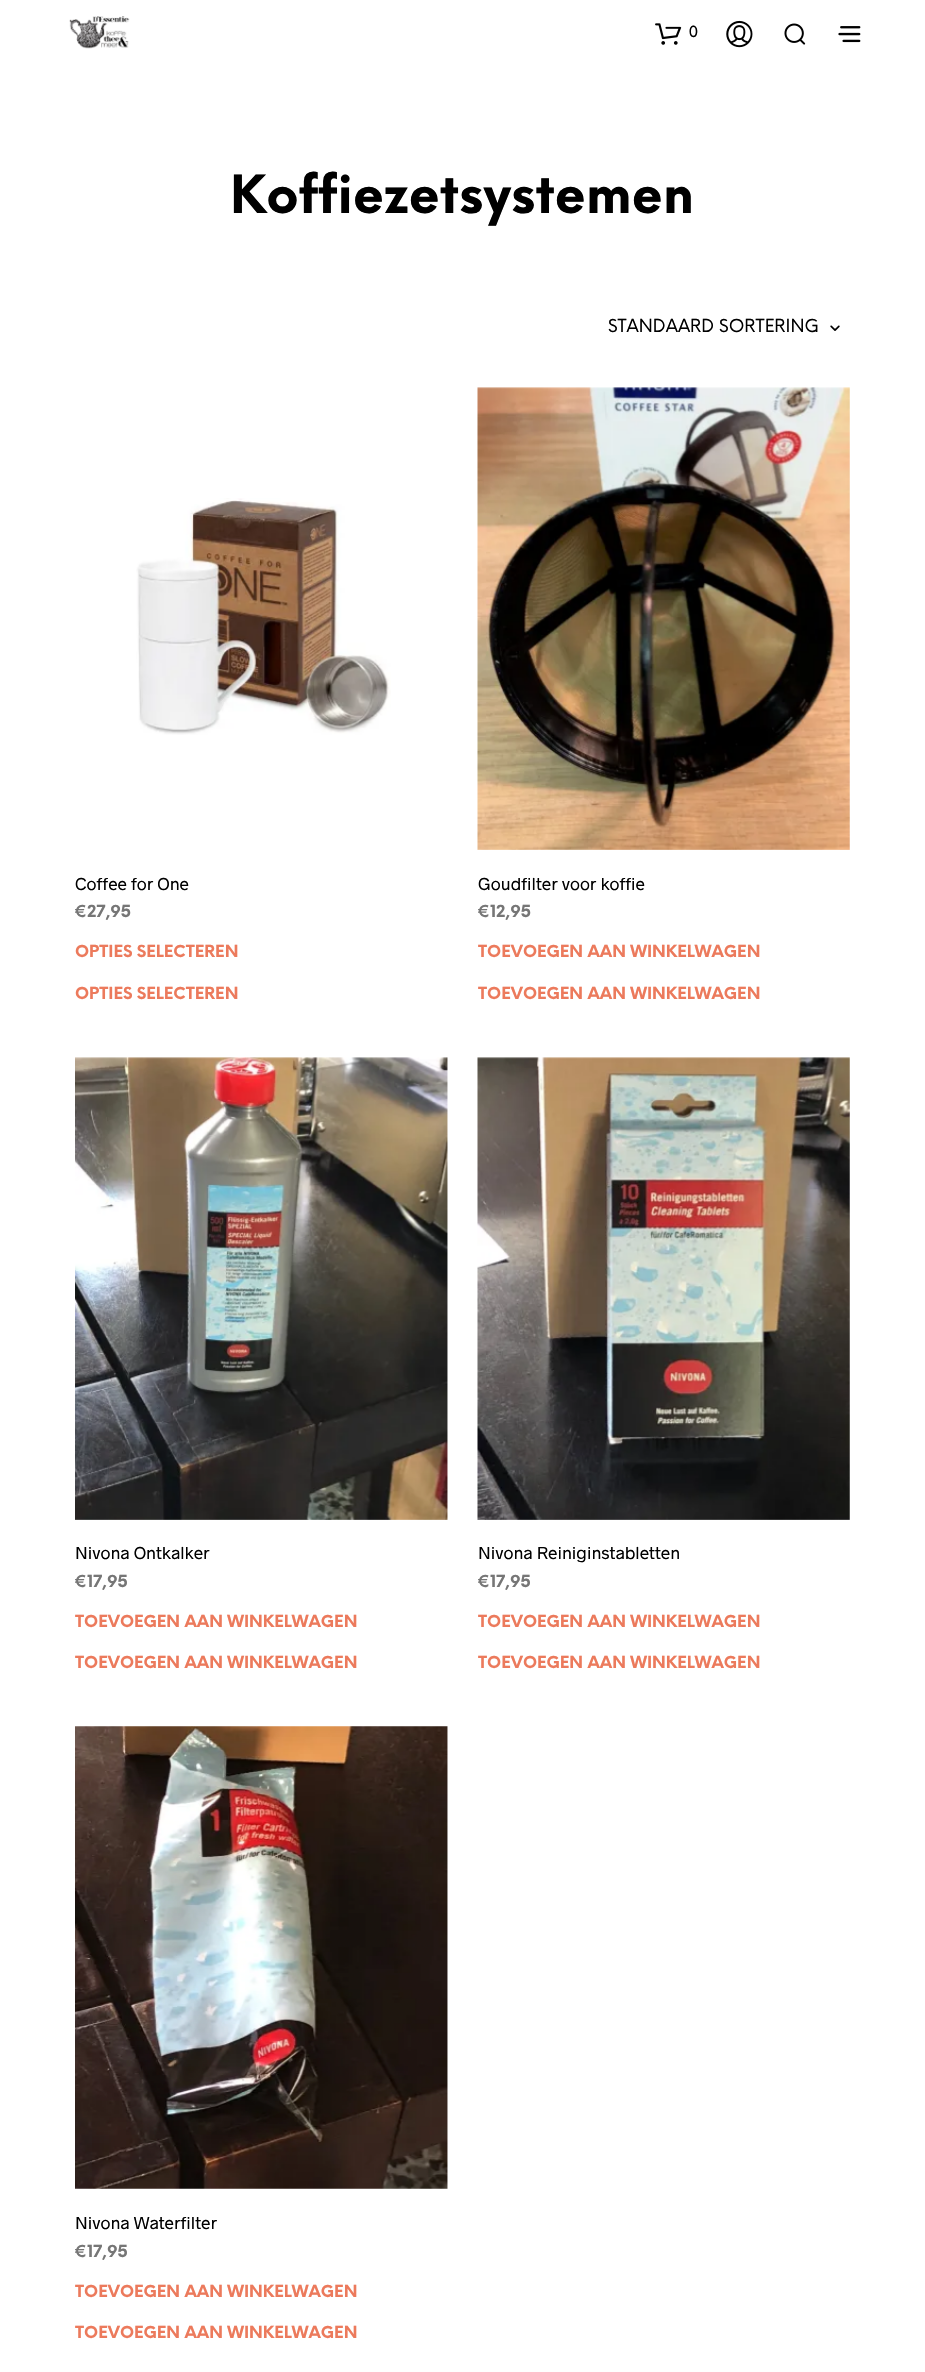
void draw(SkCanvas* canvas) {
    SkPaint paint;
    paint.setAntiAlias(true);
    canvas->clear(0xFFFFFFFF);
    canvas->drawImageRect(SkImages::DeferredFromEncodedData(SkData::MakeFromFileName("img1.png")), SkRect::MakeXYWH(69, 16, 61, 33), SkSamplingOptions());
    canvas->drawImageRect(SkImages::DeferredFromEncodedData(SkData::MakeFromFileName("img2.png")), SkRect::MakeXYWH(655, 23, 27, 22), SkSamplingOptions());
    SkFont font1(fontMgr->matchFamilyStyle("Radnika", SkFontStyle::Normal()), 16.25f);
    font1.setSubpixel(true);
    paint.setColor(0xFF000000);
    canvas->drawString("0", 689, 37, font1, paint);
    canvas->drawImageRect(SkImages::DeferredFromEncodedData(SkData::MakeFromFileName("img3.png")), SkRect::MakeXYWH(726, 20, 27, 28), SkSamplingOptions());
    canvas->drawImageRect(SkImages::DeferredFromEncodedData(SkData::MakeFromFileName("img4.png")), SkRect::MakeXYWH(784, 23, 22, 22), SkSamplingOptions());
    canvas->drawImageRect(SkImages::DeferredFromEncodedData(SkData::MakeFromFileName("img5.png")), SkRect::MakeXYWH(838, 26, 23, 17), SkSamplingOptions());
    SkFont font2(fontMgr->matchFamilyStyle("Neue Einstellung", SkFontStyle::Bold()), 51.25f);
    font2.setSubpixel(true);
    canvas->drawString("Koffiezetsystemen", 230, 213, font2, paint);
    canvas->drawImageRect(SkImages::DeferredFromEncodedData(SkData::MakeFromFileName("img6.png")), SkRect::MakeXYWH(830, 325, 10, 6), SkSamplingOptions());
    SkFont font3(fontMgr->matchFamilyStyle("Neue Einstellung", SkFontStyle::Normal()), 17.5f);
    font3.setSubpixel(true);
    canvas->drawString("STANDAARD SORTERING", 608, 332, font3, paint);
    canvas->drawImageRect(SkImages::DeferredFromEncodedData(SkData::MakeFromFileName("img7.png")), SkRect::MakeXYWH(136, 498, 255, 237), SkSamplingOptions());
    SkFont font4(fontMgr->matchFamilyStyle("Radnika", SkFontStyle::Normal()), 17.5f);
    font4.setSubpixel(true);
    canvas->drawString("Coffee for One", 75, 890, font4, paint);
    SkFont font5(fontMgr->matchFamilyStyle("Neue Einstellung", SkFontStyle::Bold()), 16.25f);
    font5.setSubpixel(true);
    paint.setColor(0xFF767676);
    canvas->drawString("€27,95", 75, 917, font5, paint);
    paint.setColor(0xFFEC7A5C);
    canvas->drawString("OPTIES SELECTEREN", 75, 957, font5, paint);
    canvas->drawString("OPTIES SELECTEREN", 75, 999, font5, paint);
    canvas->drawImageRect(SkImages::DeferredFromEncodedData(SkData::MakeFromFileName("img8.png")), SkRect::MakeXYWH(477, 387, 373, 463), SkSamplingOptions());
    paint.setColor(0xFF000000);
    canvas->drawString("Goudfilter voor koffie", 478, 890, font4, paint);
    paint.setColor(0xFF767676);
    canvas->drawString("€12,95", 478, 917, font5, paint);
    paint.setColor(0xFFEC7A5C);
    canvas->drawString("TOEVOEGEN AAN WINKELWAGEN", 478, 957, font5, paint);
    canvas->drawString("TOEVOEGEN AAN WINKELWAGEN", 478, 999, font5, paint);
    canvas->drawImageRect(SkImages::DeferredFromEncodedData(SkData::MakeFromFileName("img9.png")), SkRect::MakeXYWH(75, 1057, 373, 463), SkSamplingOptions());
    paint.setColor(0xFF000000);
    canvas->drawString("Nivona Ontkalker", 75, 1559, font4, paint);
    paint.setColor(0xFF767676);
    canvas->drawString("€17,95", 75, 1587, font5, paint);
    paint.setColor(0xFFEC7A5C);
    canvas->drawString("TOEVOEGEN AAN WINKELWAGEN", 75, 1627, font5, paint);
    canvas->drawString("TOEVOEGEN AAN WINKELWAGEN", 75, 1668, font5, paint);
    canvas->drawImageRect(SkImages::DeferredFromEncodedData(SkData::MakeFromFileName("img10.png")), SkRect::MakeXYWH(477, 1057, 373, 463), SkSamplingOptions());
    paint.setColor(0xFF000000);
    canvas->drawString("Nivona Reiniginstabletten", 478, 1559, font4, paint);
    paint.setColor(0xFF767676);
    canvas->drawString("€17,95", 478, 1587, font5, paint);
    paint.setColor(0xFFEC7A5C);
    canvas->drawString("TOEVOEGEN AAN WINKELWAGEN", 478, 1627, font5, paint);
    canvas->drawString("TOEVOEGEN AAN WINKELWAGEN", 478, 1668, font5, paint);
    canvas->drawImageRect(SkImages::DeferredFromEncodedData(SkData::MakeFromFileName("img11.png")), SkRect::MakeXYWH(75, 1726, 373, 463), SkSamplingOptions());
    paint.setColor(0xFF000000);
    canvas->drawString("Nivona Waterfilter", 75, 2229, font4, paint);
    paint.setColor(0xFF767676);
    canvas->drawString("€17,95", 75, 2257, font5, paint);
    paint.setColor(0xFFEC7A5C);
    canvas->drawString("TOEVOEGEN AAN WINKELWAGEN", 75, 2297, font5, paint);
    canvas->drawString("TOEVOEGEN AAN WINKELWAGEN", 75, 2338, font5, paint);
}
